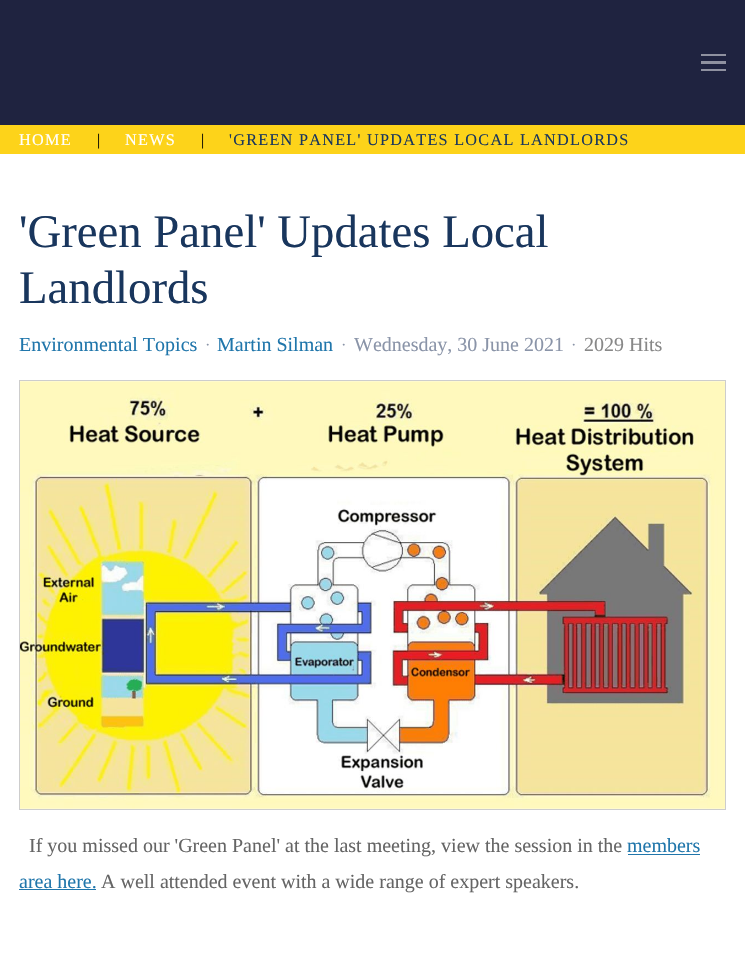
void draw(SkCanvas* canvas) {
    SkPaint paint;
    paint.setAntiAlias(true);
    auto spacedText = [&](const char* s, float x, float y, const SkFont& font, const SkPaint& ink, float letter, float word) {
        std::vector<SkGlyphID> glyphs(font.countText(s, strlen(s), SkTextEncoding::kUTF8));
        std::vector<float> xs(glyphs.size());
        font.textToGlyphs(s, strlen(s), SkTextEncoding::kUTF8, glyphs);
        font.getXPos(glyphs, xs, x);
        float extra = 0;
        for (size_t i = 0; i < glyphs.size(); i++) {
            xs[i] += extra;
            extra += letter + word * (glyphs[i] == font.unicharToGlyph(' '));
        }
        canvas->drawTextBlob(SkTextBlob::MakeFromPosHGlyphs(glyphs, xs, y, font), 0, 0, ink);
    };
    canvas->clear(0xFFFFFFFF);
    paint.setColor(0xFF1F2340);
    canvas->drawRect(SkRect::MakeXYWH(0, 0, 745, 125), paint);
    paint.setColor(0xFF8F91A0);
    canvas->drawRect(SkRect::MakeXYWH(701, 54, 25, 2), paint);
    canvas->drawRect(SkRect::MakeXYWH(701, 61, 25, 3), paint);
    canvas->drawRect(SkRect::MakeXYWH(701, 69, 25, 2), paint);
    paint.setColor(0xFFFDD31A);
    canvas->drawRect(SkRect::MakeXYWH(0, 125, 745, 29), paint);
    SkFont font1(fontMgr->matchFamilyStyle("Liberation Serif", SkFontStyle::Normal()), 16.25f);
    font1.setSubpixel(true);
    paint.setColor(0xFFFFFFFF);
    spacedText("HOME", 19, 145, font1, paint, 1.25f, 0);
    paint.setColor(0xFF000000);
    canvas->drawString("|", 97, 145, font1, paint);
    paint.setColor(0xFFFFFFFF);
    spacedText("NEWS", 125, 145, font1, paint, 1.25f, 0);
    paint.setColor(0xFF000000);
    canvas->drawString("|", 201, 145, font1, paint);
    paint.setColor(0xFF19365D);
    spacedText("'GREEN PANEL' UPDATES LOCAL LANDLORDS", 229, 145, font1, paint, 1.25f, 0);
    SkFont font2(fontMgr->matchFamilyStyle("Liberation Serif", SkFontStyle::Normal()), 46.75f);
    font2.setSubpixel(true);
    canvas->drawString("'Green Panel' Updates Local", 19, 247, font2, paint);
    canvas->drawString("Landlords", 19, 303, font2, paint);
    SkFont font3(fontMgr->matchFamilyStyle("Liberation Serif", SkFontStyle::Normal()), 20);
    font3.setSubpixel(true);
    paint.setColor(0xFF2076AB);
    canvas->drawString("Environmental Topics", 19, 351, font3, paint);
    paint.setColor(0xFF8A94A8);
    canvas->drawString("·", 205, 350, font1, paint);
    paint.setColor(0xFF2076AB);
    canvas->drawString("Martin Silman", 217, 351, font3, paint);
    paint.setColor(0xFF8A94A8);
    canvas->drawString("·", 341, 350, font1, paint);
    canvas->drawString("Wednesday, 30 June 2021", 354, 351, font3, paint);
    canvas->drawString("·", 571, 350, font1, paint);
    paint.setColor(0xFF888888);
    canvas->drawString("2029 Hits", 584, 351, font3, paint);
    paint.setStyle(SkPaint::kStroke_Style);
    paint.setStrokeWidth(1);
    paint.setColor(0xFFCDCDCD);
    canvas->drawRect(SkRect::MakeXYWH(19.5f, 380.5f, 706, 429), paint);
    canvas->drawImageRect(SkImages::DeferredFromEncodedData(SkData::MakeFromFileName("img1.png")), SkRect::MakeXYWH(20, 381, 705, 428), SkSamplingOptions());
    paint.setStyle(SkPaint::kFill_Style);
    paint.setColor(0xFF656565);
    canvas->drawString("If you missed our 'Green Panel' at the last meeting, view the session in the", 29, 852, font3, paint);
    paint.setColor(0xFF2076AB);
    canvas->drawString("members", 627, 852, font3, paint);
    canvas->drawRect(SkRect::MakeXYWH(628, 854, 72, 1), paint);
    canvas->drawString("area here.", 19, 888, font3, paint);
    canvas->drawRect(SkRect::MakeXYWH(19, 889, 77, 1), paint);
    paint.setColor(0xFF656565);
    canvas->drawString("A well attended event with a wide range of expert speakers.", 101, 888, font3, paint);
}
